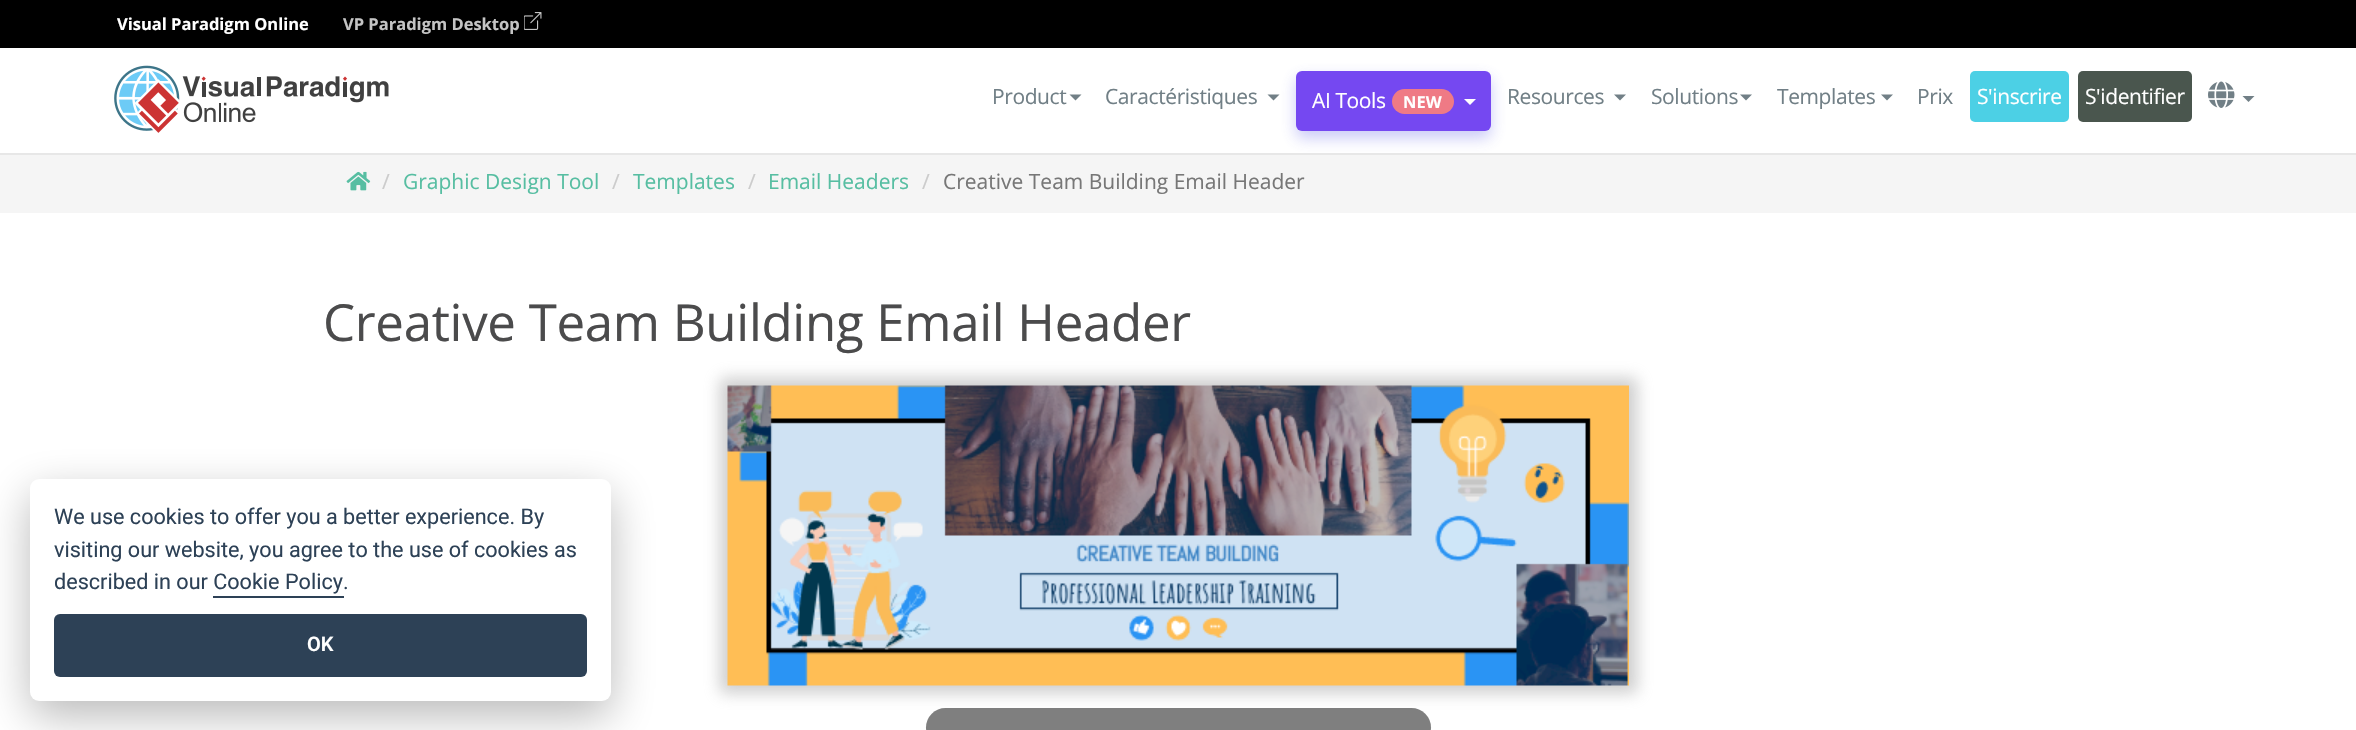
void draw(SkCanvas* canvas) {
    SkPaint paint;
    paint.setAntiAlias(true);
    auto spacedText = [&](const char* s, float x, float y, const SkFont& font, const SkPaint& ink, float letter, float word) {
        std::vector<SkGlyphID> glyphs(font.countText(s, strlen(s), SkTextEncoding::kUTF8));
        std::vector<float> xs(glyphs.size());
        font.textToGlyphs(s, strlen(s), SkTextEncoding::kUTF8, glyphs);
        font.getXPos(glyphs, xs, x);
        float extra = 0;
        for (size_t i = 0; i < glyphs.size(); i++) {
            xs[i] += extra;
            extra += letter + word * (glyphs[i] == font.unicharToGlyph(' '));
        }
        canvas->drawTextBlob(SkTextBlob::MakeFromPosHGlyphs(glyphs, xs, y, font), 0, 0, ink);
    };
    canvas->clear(0xFFFFFFFF);
    paint.setColor(0xFFE7E7E7);
    canvas->drawRect(SkRect::MakeXYWH(0, 153, 2356, 2), paint);
    paint.setColor(0xFF000000);
    canvas->drawRect(SkRect::MakeXYWH(0, 0, 2356, 48), paint);
    SkFont font1(fontMgr->matchFamilyStyle("Open Sans", SkFontStyle::Bold()), 16.5f);
    font1.setSubpixel(true);
    paint.setColor(0xFFFFFFFF);
    canvas->drawString("Visual Paradigm Online", 117, 30, font1, paint);
    paint.setColor(0xFFC4C4C4);
    canvas->drawString("VP Paradigm Desktop", 343, 30, font1, paint);
    canvas->drawImageRect(SkImages::DeferredFromEncodedData(SkData::MakeFromFileName("img1.png")), SkRect::MakeXYWH(524, 12, 18, 18), SkSamplingOptions());
    canvas->drawImageRect(SkImages::DeferredFromEncodedData(SkData::MakeFromFileName("img2.png")), SkRect::MakeXYWH(114, 65, 275, 68), SkSamplingOptions());
    SkFont font2(fontMgr->matchFamilyStyle("Open Sans", SkFontStyle::Normal()), 21);
    font2.setSubpixel(true);
    paint.setColor(0xFF717F86);
    spacedText("Product", 992, 104, font2, paint, -0.4f, 0);
    canvas->drawPath(SkPathBuilder().moveTo(1069.5f, 94.5f).lineTo(1081.5f, 94.5f).lineTo(1075.5f, 100.5f).close().detach(), paint);
    spacedText("Caractéristiques", 1105, 104, font2, paint, -0.4f, 0);
    canvas->drawPath(SkPathBuilder().moveTo(1267.5f, 94.5f).lineTo(1279.5f, 94.5f).lineTo(1273.5f, 100.5f).close().detach(), paint);
    paint.setColor(0xFFF5F5F5);
    canvas->drawRect(SkRect::MakeXYWH(0, 155, 2356, 58), paint);
    paint.setColor(0x4D4C4EE5);
    paint.setMaskFilter(SkMaskFilter::MakeBlur(kNormal_SkBlurStyle, 7.5f));
    canvas->drawRoundRect(SkRect::MakeXYWH(1296, 78, 195, 60), 6, 6, paint);
    paint.setMaskFilter(nullptr);
    paint.setColor(0xFF7548F1);
    canvas->drawRoundRect(SkRect::MakeXYWH(1296, 71, 195, 60), 6, 6, paint);
    paint.setColor(0xFFFFFFFF);
    spacedText("AI Tools", 1312, 108, font2, paint, -0.4f, 0);
    paint.setColor(0xFFEF7A85);
    canvas->drawRoundRect(SkRect::MakeXYWH(1392, 89, 62, 25), 12.5f, 12.5f, paint);
    paint.setColor(0xFFFFFFFF);
    canvas->drawString("NEW", 1403, 108, font1, paint);
    canvas->drawPath(SkPathBuilder().moveTo(1464, 99).lineTo(1476, 99).lineTo(1470, 105).close().detach(), paint);
    paint.setColor(0xFF717F86);
    spacedText("Resources", 1507, 104, font2, paint, -0.4f, 0);
    canvas->drawPath(SkPathBuilder().moveTo(1614, 94.5f).lineTo(1626, 94.5f).lineTo(1620, 100.5f).close().detach(), paint);
    spacedText("Solutions", 1651, 104, font2, paint, -0.4f, 0);
    canvas->drawPath(SkPathBuilder().moveTo(1740, 94.5f).lineTo(1752, 94.5f).lineTo(1746, 100.5f).close().detach(), paint);
    spacedText("Templates", 1777, 104, font2, paint, -0.4f, 0);
    canvas->drawPath(SkPathBuilder().moveTo(1881, 94.5f).lineTo(1893, 94.5f).lineTo(1887, 100.5f).close().detach(), paint);
    spacedText("Prix", 1917, 104, font2, paint, -0.4f, 0);
    paint.setColor(0xFF4CD0E5);
    canvas->drawRoundRect(SkRect::MakeXYWH(1970, 71, 99, 51), 5, 5, paint);
    paint.setColor(0xFFFFFFFF);
    spacedText("S'inscrire", 1977, 104, font2, paint, -0.4f, 0);
    paint.setColor(0xFF4A564E);
    canvas->drawRoundRect(SkRect::MakeXYWH(2078, 71, 114, 51), 5, 5, paint);
    paint.setColor(0xFFFFFFFF);
    spacedText("S'identifier", 2085, 104, font2, paint, -0.4f, 0);
    canvas->drawImageRect(SkImages::DeferredFromEncodedData(SkData::MakeFromFileName("img3.png")), SkRect::MakeXYWH(2208, 81, 27, 27), SkSamplingOptions());
    paint.setColor(0xFF717F86);
    canvas->drawPath(SkPathBuilder().moveTo(2242.5f, 96).lineTo(2254.5f, 96).lineTo(2248.5f, 102).close().detach(), paint);
    canvas->drawImageRect(SkImages::DeferredFromEncodedData(SkData::MakeFromFileName("img4.png")), SkRect::MakeXYWH(346, 171, 25, 20), SkSamplingOptions());
    paint.setColor(0xFFCCCCCC);
    canvas->drawString("/", 382, 189, font2, paint);
    paint.setColor(0xFF57BEA2);
    canvas->drawString("Graphic Design Tool", 403, 189, font2, paint);
    paint.setColor(0xFFCCCCCC);
    canvas->drawString("/", 612, 189, font2, paint);
    paint.setColor(0xFF57BEA2);
    canvas->drawString("Templates", 633, 189, font2, paint);
    paint.setColor(0xFFCCCCCC);
    canvas->drawString("/", 748, 189, font2, paint);
    paint.setColor(0xFF57BEA2);
    canvas->drawString("Email Headers", 768, 189, font2, paint);
    paint.setColor(0xFFCCCCCC);
    canvas->drawString("/", 922, 189, font2, paint);
    paint.setColor(0xFF777777);
    canvas->drawString("Creative Team Building Email Header", 943, 189, font2, paint);
    SkFont font3(fontMgr->matchFamilyStyle("Open Sans", SkFontStyle::Normal()), 51);
    font3.setSubpixel(true);
    paint.setColor(0xFF4B4B4C);
    spacedText("Creative Team Building Email Header", 323, 341, font3, paint, -0.3f, 0);
    paint.setColor(0xB3B8B8B8);
    paint.setMaskFilter(SkMaskFilter::MakeBlur(kNormal_SkBlurStyle, 7.5f));
    canvas->drawRect(SkRect::MakeXYWH(720, 378, 917, 315), paint);
    paint.setMaskFilter(nullptr);
    canvas->drawImageRect(SkImages::DeferredFromEncodedData(SkData::MakeFromFileName("img5.png")), SkRect::MakeXYWH(727, 385, 902, 301), SkSamplingOptions());
    paint.setColor(0xFF7F7F7F);
    canvas->drawRoundRect(SkRect::MakeXYWH(926, 708, 505, 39), 19.5f, 19.5f, paint);
    paint.setColor(0x47020203);
    paint.setMaskFilter(SkMaskFilter::MakeBlur(kNormal_SkBlurStyle, 22.5f));
    canvas->drawRoundRect(SkRect::MakeXYWH(30, 494, 581, 222), 9, 9, paint);
    paint.setMaskFilter(nullptr);
    paint.setColor(0xFFFFFFFF);
    canvas->drawRoundRect(SkRect::MakeXYWH(30, 479, 581, 222), 9, 9, paint);
    SkFont font4(fontMgr->matchFamilyStyle("Roboto", SkFontStyle::Normal()), 21.6f);
    font4.setSubpixel(true);
    paint.setColor(0xFF2D4156);
    canvas->drawString("We use cookies to offer you a better experience. By", 54, 524, font4, paint);
    canvas->drawString("visiting our website, you agree to the use of cookies as", 54, 557, font4, paint);
    canvas->drawString("described in our Cookie Policy.", 54, 589, font4, paint);
    canvas->drawRect(SkRect::MakeXYWH(213, 596, 131, 2), paint);
    canvas->drawRoundRect(SkRect::MakeXYWH(54, 614, 533, 63), 6, 6, paint);
    SkFont font5(fontMgr->matchFamilyStyle("Roboto", SkFontStyle(600, SkFontStyle::kNormal_Width, SkFontStyle::kUpright_Slant)), 20);
    font5.setSubpixel(true);
    paint.setColor(0xFFFFFFFF);
    canvas->drawString("OK", 307, 651, font5, paint);
}
